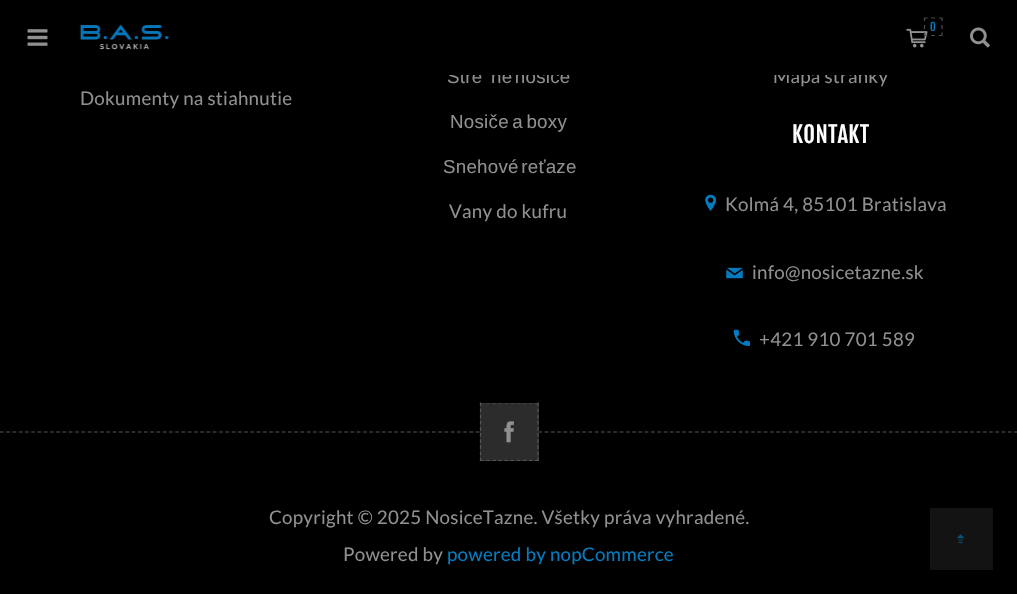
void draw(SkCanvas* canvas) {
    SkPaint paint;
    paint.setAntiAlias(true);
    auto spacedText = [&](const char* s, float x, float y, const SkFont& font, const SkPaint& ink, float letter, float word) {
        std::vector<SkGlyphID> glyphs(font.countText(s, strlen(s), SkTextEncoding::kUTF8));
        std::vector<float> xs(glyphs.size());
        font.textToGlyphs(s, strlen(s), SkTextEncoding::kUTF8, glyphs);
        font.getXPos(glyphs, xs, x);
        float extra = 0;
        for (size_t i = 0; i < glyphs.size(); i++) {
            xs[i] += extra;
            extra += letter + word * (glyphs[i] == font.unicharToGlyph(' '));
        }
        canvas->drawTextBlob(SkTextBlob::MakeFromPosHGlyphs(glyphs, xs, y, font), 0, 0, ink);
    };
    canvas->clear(0xFF000000);
    SkFont font1(fontMgr->matchFamilyStyle("Liberation Sans", SkFontStyle::Normal()), 18.75f);
    font1.setSubpixel(true);
    paint.setColor(0xFF909090);
    spacedText("Stre", 447, 83, font1, paint, 0.25f, 0);
    spacedText("né nosiče", 491, 83, font1, paint, 0.25f, -3);
    SkFont font2(fontMgr->matchFamilyStyle("Lato", SkFontStyle::Normal()), 18.75f);
    font2.setSubpixel(true);
    spacedText("Mapa stránky", 773, 83, font2, paint, 0.25f, 0);
    paint.setColor(0xFF000000);
    canvas->drawRect(SkRect::MakeXYWH(448, 69, 440, 6), paint);
    canvas->drawImageRect(SkImages::DeferredFromEncodedData(SkData::MakeFromFileName("img1.png")), SkRect::MakeXYWH(27, 29, 21, 17), SkSamplingOptions());
    canvas->drawImageRect(SkImages::DeferredFromEncodedData(SkData::MakeFromFileName("img2.png")), SkRect::MakeXYWH(79, 24, 90, 26), SkSamplingOptions());
    canvas->drawImageRect(SkImages::DeferredFromEncodedData(SkData::MakeFromFileName("img3.png")), SkRect::MakeXYWH(906, 28, 22, 20), SkSamplingOptions());
    paint.setStyle(SkPaint::kStroke_Style);
    paint.setStrokeWidth(1.2f);
    paint.setColor(0xFF4C4C4C);
    canvas->drawPath(SkPathBuilder().moveTo(924, 18).lineTo(927.5f, 18).moveTo(931, 18).lineTo(935, 18).moveTo(939, 18).lineTo(942.5f, 18).moveTo(942, 17.5f).lineTo(942, 21).moveTo(942, 25).lineTo(942, 29).moveTo(942, 32.5f).lineTo(942, 36).moveTo(924, 35.5f).lineTo(927.5f, 35.5f).moveTo(931, 35.5f).lineTo(935, 35.5f).moveTo(939, 35.5f).lineTo(942.5f, 35.5f).moveTo(924.5f, 17.5f).lineTo(924.5f, 21).moveTo(924.5f, 25).lineTo(924.5f, 29).moveTo(924.5f, 32.5f).lineTo(924.5f, 36).detach(), paint);
    SkFont font3(fontMgr->matchFamilyStyle("Fjalla One", SkFontStyle::Normal()), 11);
    font3.setSubpixel(true);
    paint.setStyle(SkPaint::kFill_Style);
    paint.setColor(0xFF037CBF);
    spacedText("0", 930, 31, font3, paint, 0.25f, 0);
    canvas->drawImageRect(SkImages::DeferredFromEncodedData(SkData::MakeFromFileName("img4.png")), SkRect::MakeXYWH(970, 27, 20, 21), SkSamplingOptions());
    paint.setColor(0xFF909090);
    spacedText("Nosiče a boxy", 450, 128, font1, paint, 0.25f, -2);
    spacedText("Snehové reťaze", 443, 173, font1, paint, 0.25f, -3);
    spacedText("Vany do kufru", 449, 218, font2, paint, 0.25f, 0);
    spacedText("Dokumenty na stiahnutie", 80, 105, font2, paint, 0.25f, 0);
    SkFont font4(fontMgr->matchFamilyStyle("Fjalla One", SkFontStyle::Normal()), 22.5f);
    font4.setSubpixel(true);
    paint.setColor(0xFFFFFFFF);
    spacedText("KONTAKT", 792, 143, font4, paint, 0.25f, 0);
    canvas->drawImageRect(SkImages::DeferredFromEncodedData(SkData::MakeFromFileName("img5.png")), SkRect::MakeXYWH(705, 194, 11, 17), SkSamplingOptions());
    paint.setColor(0xFF909090);
    spacedText("Kolmá 4, 85101 Bratislava", 725, 211, font2, paint, 0.25f, 0);
    canvas->drawImageRect(SkImages::DeferredFromEncodedData(SkData::MakeFromFileName("img6.png")), SkRect::MakeXYWH(726, 267, 17, 12), SkSamplingOptions());
    spacedText("info@nosicetazne.sk", 752, 279, font2, paint, 0.25f, 0);
    canvas->drawImageRect(SkImages::DeferredFromEncodedData(SkData::MakeFromFileName("img7.png")), SkRect::MakeXYWH(733, 329, 17, 17), SkSamplingOptions());
    spacedText("+421 910 701 589", 759, 346, font2, paint, 0.25f, 0);
    paint.setStyle(SkPaint::kStroke_Style);
    paint.setColor(0xFF565656);
    paint.setPathEffect(SkDashPathEffect::Make({{3.75f, 2.51f}}, 0));
    canvas->drawPath(SkPathBuilder().moveTo(0, 432).lineTo(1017.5f, 432).detach(), paint);
    paint.setPathEffect(nullptr);
    paint.setStyle(SkPaint::kFill_Style);
    paint.setColor(0xFF2C2C2C);
    canvas->drawRect(SkRect::MakeXYWH(480, 403, 59, 58), paint);
    canvas->save();
    canvas->clipRect(SkRect::MakeXYWH(0, 403, 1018, 98));
    paint.setStyle(SkPaint::kStroke_Style);
    paint.setColor(0xFF565656);
    paint.setPathEffect(SkDashPathEffect::Make({{3.75f, 2.36f}}, 0));
    canvas->drawPath(SkPathBuilder().moveTo(480, 403).lineTo(539, 403).detach(), paint);
    paint.setPathEffect(nullptr);
    canvas->restore();
    paint.setPathEffect(SkDashPathEffect::Make({{3.75f, 2.36f}}, 0));
    canvas->drawPath(SkPathBuilder().moveTo(538, 402.5f).lineTo(538, 461).moveTo(480, 460.5f).lineTo(539, 460.5f).moveTo(480.5f, 402.5f).lineTo(480.5f, 461).detach(), paint);
    paint.setPathEffect(nullptr);
    canvas->drawImageRect(SkImages::DeferredFromEncodedData(SkData::MakeFromFileName("img8.png")), SkRect::MakeXYWH(504, 421, 10, 22), SkSamplingOptions());
    paint.setStyle(SkPaint::kFill_Style);
    paint.setColor(0xFF909090);
    spacedText("Copyright © 2025 NosiceTazne. Všetky práva vyhradené.", 269, 524, font2, paint, 0.25f, 0);
    spacedText("Powered by", 343, 561, font2, paint, 0.25f, 0);
    paint.setColor(0xFF037CBF);
    spacedText("powered by nopCommerce", 447, 561, font2, paint, 0.25f, 0);
    paint.setColor(0xFF131313);
    canvas->drawRect(SkRect::MakeXYWH(930, 508, 63, 62), paint);
    canvas->drawImageRect(SkImages::DeferredFromEncodedData(SkData::MakeFromFileName("img9.png")), SkRect::MakeXYWH(957, 534, 8, 10), SkSamplingOptions());
}
